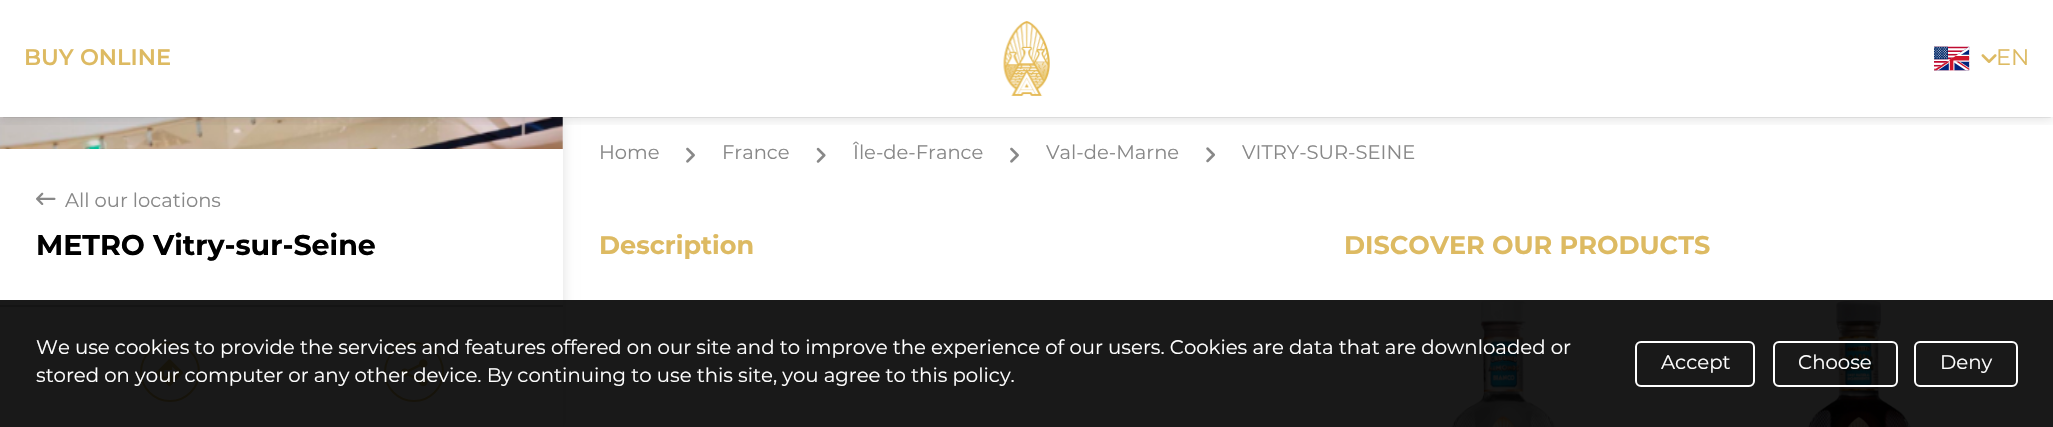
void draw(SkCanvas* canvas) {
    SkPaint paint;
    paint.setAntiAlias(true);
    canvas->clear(0xFFFFFFFF);
    canvas->save();
    canvas->clipRect(SkRect::MakeXYWH(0, 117, 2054, 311));
    canvas->clipPath(SkPathBuilder(SkPathFillType::kEvenOdd).moveTo(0, 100).lineTo(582, 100).lineTo(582, 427).lineTo(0, 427).close().moveTo(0, 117).lineTo(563, 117).lineTo(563, 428).lineTo(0, 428).close().detach(), true);
    paint.setColor(0x1F000000);
    paint.setMaskFilter(SkMaskFilter::MakeBlur(kNormal_SkBlurStyle, 6));
    canvas->drawRect(SkRect::MakeXYWH(0, 119, 563, 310), paint);
    paint.setMaskFilter(nullptr);
    canvas->restore();
    canvas->drawImageRect(SkImages::DeferredFromEncodedData(SkData::MakeFromFileName("img4.png")), SkRect::MakeXYWH(0, 117, 563, 32), SkSamplingOptions());
    canvas->drawImageRect(SkImages::DeferredFromEncodedData(SkData::MakeFromFileName("img5.png")), SkRect::MakeXYWH(562, 117, 1, 32), SkSamplingOptions());
    canvas->save();
    canvas->clipRect(SkRect::MakeXYWH(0, 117, 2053, 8));
    paint.setMaskFilter(SkMaskFilter::MakeBlur(kNormal_SkBlurStyle, 6));
    canvas->drawRect(SkRect::MakeXYWH(0, 2, 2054, 117), paint);
    paint.setMaskFilter(nullptr);
    canvas->restore();
    canvas->save();
    canvas->clipRect(SkRect::MakeXYWH(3, 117, 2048, 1));
    paint.setColor(0x33000000);
    paint.setMaskFilter(SkMaskFilter::MakeBlur(kNormal_SkBlurStyle, 1));
    canvas->drawRect(SkRect::MakeXYWH(3, 6, 2048, 111), paint);
    paint.setMaskFilter(nullptr);
    canvas->restore();
    SkFont font1(fontMgr->matchFamilyStyle("Montserrat", SkFontStyle(600, SkFontStyle::kNormal_Width, SkFontStyle::kUpright_Slant)), 22.5f);
    font1.setSubpixel(true);
    paint.setColor(0xFFDDBA62);
    canvas->drawString("BUY ONLINE", 24, 65, font1, paint);
    canvas->drawImageRect(SkImages::DeferredFromEncodedData(SkData::MakeFromFileName("img1.png")), SkRect::MakeXYWH(1003, 21, 47, 75), SkSamplingOptions());
    canvas->drawImageRect(SkImages::DeferredFromEncodedData(SkData::MakeFromFileName("img2.png")), SkRect::MakeXYWH(1934, 46, 36, 25), SkSamplingOptions());
    canvas->drawImageRect(SkImages::DeferredFromEncodedData(SkData::MakeFromFileName("img3.png")), SkRect::MakeXYWH(1981, 54, 16, 9), SkSamplingOptions());
    SkFont font2(fontMgr->matchFamilyStyle("Montserrat", SkFontStyle::Normal()), 22.5f);
    font2.setSubpixel(true);
    canvas->drawString("EN", 1996, 65, font2, paint);
    paint.setColor(0xFFCCCCCC);
    canvas->drawRect(SkRect::MakeXYWH(0, 305, 563, 2), paint);
    canvas->drawImageRect(SkImages::DeferredFromEncodedData(SkData::MakeFromFileName("img6.png")), SkRect::MakeXYWH(36, 192, 20, 13), SkSamplingOptions());
    SkFont font3(fontMgr->matchFamilyStyle("Montserrat", SkFontStyle::Normal()), 19.5f);
    font3.setSubpixel(true);
    paint.setColor(0xFF888888);
    canvas->drawString("All our locations", 65, 207, font3, paint);
    SkFont font4(fontMgr->matchFamilyStyle("Montserrat", SkFontStyle::Bold()), 28.5f);
    font4.setSubpixel(true);
    paint.setColor(0xFF000000);
    canvas->drawString("METRO Vitry-sur-Seine", 36, 255, font4, paint);
    paint.setStyle(SkPaint::kStroke_Style);
    paint.setStrokeWidth(2);
    paint.setColor(0xFFDDBA62);
    canvas->drawCircle(170, 372, 29, paint);
    canvas->drawImageRect(SkImages::DeferredFromEncodedData(SkData::MakeFromFileName("img7.png")), SkRect::MakeXYWH(156, 359, 27, 28), SkSamplingOptions());
    canvas->drawCircle(414, 372, 29, paint);
    canvas->drawImageRect(SkImages::DeferredFromEncodedData(SkData::MakeFromFileName("img8.png")), SkRect::MakeXYWH(400, 359, 28, 28), SkSamplingOptions());
    paint.setStyle(SkPaint::kFill_Style);
    paint.setColor(0xFF888888);
    canvas->drawString("Home", 599, 159, font3, paint);
    canvas->drawImageRect(SkImages::DeferredFromEncodedData(SkData::MakeFromFileName("img9.png")), SkRect::MakeXYWH(686, 147, 9, 16), SkSamplingOptions());
    canvas->drawString("France", 722, 159, font3, paint);
    canvas->drawImageRect(SkImages::DeferredFromEncodedData(SkData::MakeFromFileName("img10.png")), SkRect::MakeXYWH(816, 147, 10, 16), SkSamplingOptions());
    canvas->drawString("Île-de-France", 853, 159, font3, paint);
    canvas->drawImageRect(SkImages::DeferredFromEncodedData(SkData::MakeFromFileName("img9.png")), SkRect::MakeXYWH(1010, 147, 9, 16), SkSamplingOptions());
    canvas->drawString("Val-de-Marne", 1046, 159, font3, paint);
    canvas->drawImageRect(SkImages::DeferredFromEncodedData(SkData::MakeFromFileName("img11.png")), SkRect::MakeXYWH(1206, 147, 9, 16), SkSamplingOptions());
    canvas->drawString("VITRY-SUR-SEINE", 1242, 159, font3, paint);
    SkFont font5(fontMgr->matchFamilyStyle("Montserrat", SkFontStyle::Bold()), 25.5f);
    font5.setSubpixel(true);
    paint.setColor(0xFFDDBA62);
    canvas->drawString("Description", 599, 254, font5, paint);
    canvas->drawString("DISCOVER OUR PRODUCTS", 1344, 254, font5, paint);
    canvas->drawImageRect(SkImages::DeferredFromEncodedData(SkData::MakeFromFileName("img12.png")), SkRect::MakeXYWH(1451, 300, 105, 127), SkSamplingOptions());
    canvas->drawImageRect(SkImages::DeferredFromEncodedData(SkData::MakeFromFileName("img13.png")), SkRect::MakeXYWH(1807, 300, 104, 127), SkSamplingOptions());
    paint.setColor(0xE6000000);
    canvas->drawRect(SkRect::MakeXYWH(0, 300, 2053, 127), paint);
    SkFont font6(fontMgr->matchFamilyStyle("Montserrat", SkFontStyle::Normal()), 19.7f);
    font6.setSubpixel(true);
    paint.setColor(0xFFFFFFFF);
    canvas->drawString("We use cookies to provide the services and features offered on our site and to improve the experience of our users. Cookies are data that are downloaded or", 36, 354, font6, paint);
    canvas->drawString("stored on your computer or any other device. By continuing to use this site, you agree to this policy.", 36, 382, font6, paint);
    paint.setStyle(SkPaint::kStroke_Style);
    canvas->drawRoundRect(SkRect::MakeXYWH(1636, 342, 118, 44), 5, 5, paint);
    paint.setStyle(SkPaint::kFill_Style);
    canvas->drawString("Accept", 1661, 369, font6, paint);
    paint.setStyle(SkPaint::kStroke_Style);
    canvas->drawRoundRect(SkRect::MakeXYWH(1774, 342, 123, 44), 5, 5, paint);
    paint.setStyle(SkPaint::kFill_Style);
    canvas->drawString("Choose", 1798, 369, font6, paint);
    paint.setStyle(SkPaint::kStroke_Style);
    canvas->drawRoundRect(SkRect::MakeXYWH(1915, 342, 102, 44), 5, 5, paint);
    paint.setStyle(SkPaint::kFill_Style);
    canvas->drawString("Deny", 1940, 369, font6, paint);
}
